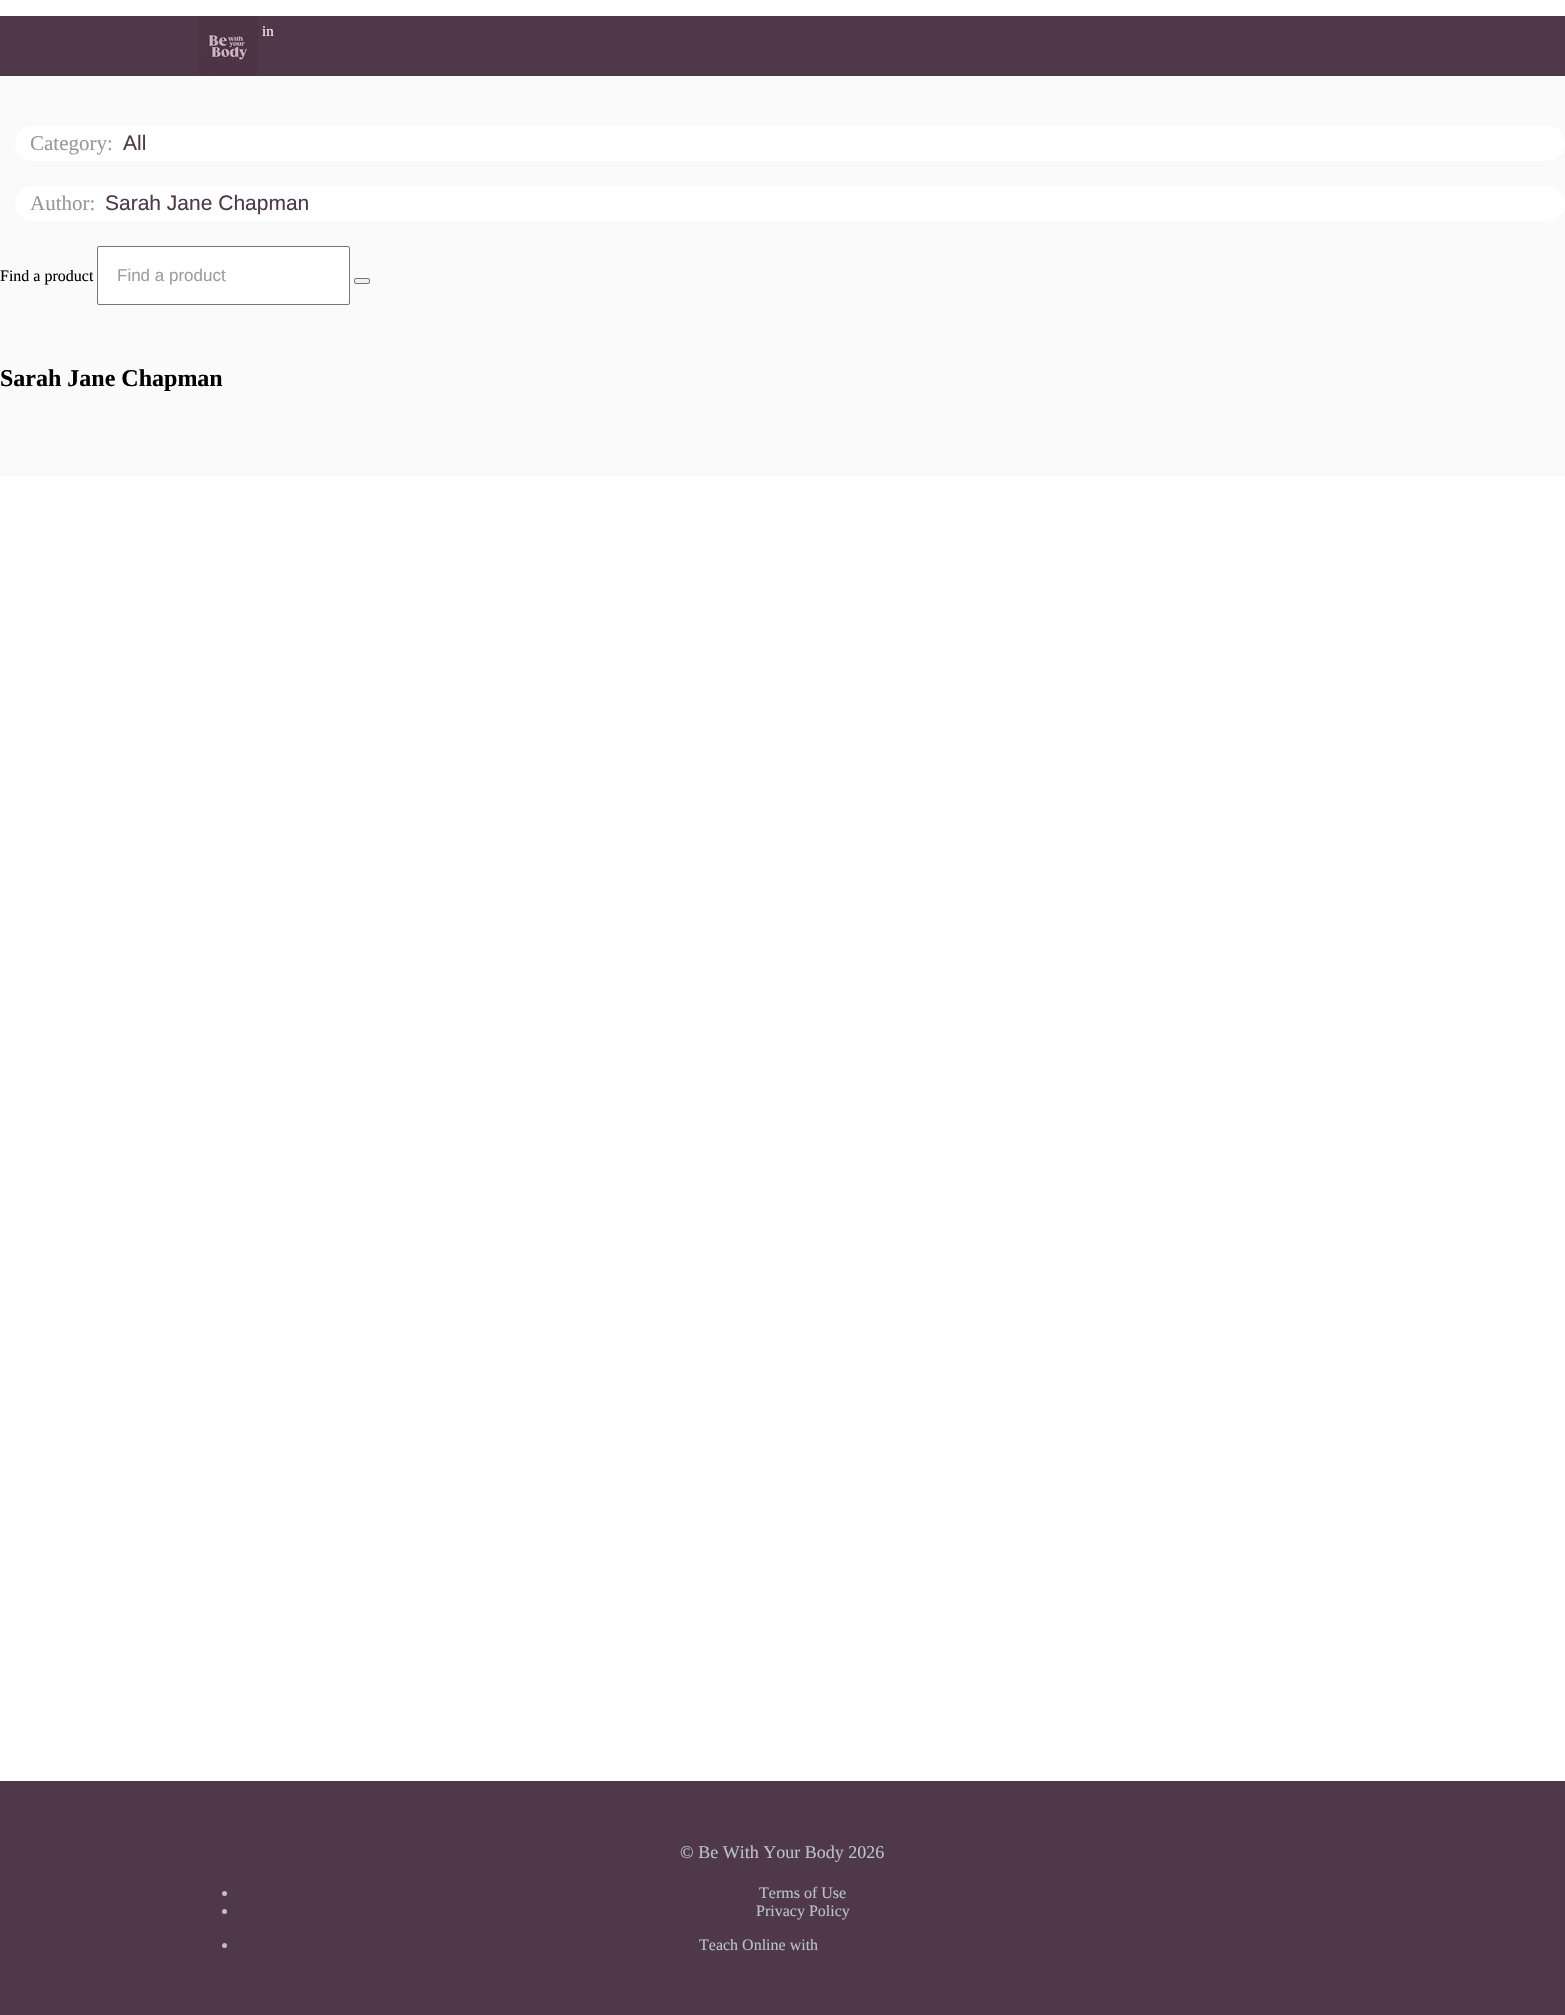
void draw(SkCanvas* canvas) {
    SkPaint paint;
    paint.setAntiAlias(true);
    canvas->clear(0xFFFFFFFF);
    paint.setColor(0xFF4E384A);
    canvas->drawRect(SkRect::MakeXYWH(0, 16, 1565, 60), paint);
    canvas->drawImageRect(SkImages::DeferredFromEncodedData(SkData::MakeFromFileName("img1.png")), SkRect::MakeXYWH(198, 16, 60, 60), SkSamplingOptions());
    SkFont font1(fontMgr->matchFamilyStyle("Liberation Serif", SkFontStyle::Normal()), 15);
    font1.setSubpixel(true);
    paint.setColor(0xFFF5F0EA);
    canvas->drawString("in", 262, 36, font1, paint);
    paint.setColor(0xFFFAFAFA);
    canvas->drawRect(SkRect::MakeXYWH(0, 76, 1565, 400), paint);
    paint.setColor(0xFFFFFFFF);
    canvas->drawRoundRect(SkRect::MakeXYWH(15, 126, 1550, 35), 17.5f, 17.5f, paint);
    SkFont font2(fontMgr->matchFamilyStyle("Liberation Serif", SkFontStyle::Normal()), 21);
    font2.setSubpixel(true);
    paint.setColor(0xFF989898);
    canvas->drawString("Category:", 30, 150, font2, paint);
    SkFont font3(fontMgr->matchFamilyStyle("Liberation Sans", SkFontStyle::Normal()), 21);
    font3.setSubpixel(true);
    paint.setColor(0xFF4E384A);
    canvas->drawString("All", 123, 150, font3, paint);
    paint.setColor(0xFFFFFFFF);
    canvas->drawRoundRect(SkRect::MakeXYWH(15, 186, 1550, 35), 17.5f, 17.5f, paint);
    paint.setColor(0xFF989898);
    canvas->drawString("Author:", 30, 210, font2, paint);
    paint.setColor(0xFF4E384A);
    canvas->drawString("Sarah Jane Chapman", 105, 210, font3, paint);
    SkFont font4(fontMgr->matchFamilyStyle("Liberation Serif", SkFontStyle::Normal()), 16);
    font4.setSubpixel(true);
    paint.setColor(0xFF000000);
    canvas->drawString("Find a product", 0, 281, font4, paint);
    paint.setColor(0xFFFFFFFF);
    canvas->drawRoundRect(SkRect::MakeXYWH(97.5f, 246.5f, 252, 58), 1.5f, 1.5f, paint);
    paint.setStyle(SkPaint::kStroke_Style);
    paint.setStrokeWidth(1);
    paint.setColor(0xFF767676);
    canvas->drawRoundRect(SkRect::MakeXYWH(97.5f, 246.5f, 252, 58), 1.5f, 1.5f, paint);
    SkFont font5(fontMgr->matchFamilyStyle("Liberation Sans", SkFontStyle::Normal()), 17);
    font5.setSubpixel(true);
    paint.setStyle(SkPaint::kFill_Style);
    paint.setColor(0xFF9E9E9E);
    canvas->drawString("Find a product", 117, 281, font5, paint);
    paint.setColor(0xFFEFEFEF);
    canvas->drawRoundRect(SkRect::MakeXYWH(354.5f, 278.5f, 15, 5), 1.5f, 1.5f, paint);
    paint.setStyle(SkPaint::kStroke_Style);
    paint.setColor(0xFF767676);
    canvas->drawRoundRect(SkRect::MakeXYWH(354.5f, 278.5f, 15, 5), 1.5f, 1.5f, paint);
    SkFont font6(fontMgr->matchFamilyStyle("Liberation Serif", SkFontStyle::Bold()), 24);
    font6.setSubpixel(true);
    paint.setStyle(SkPaint::kFill_Style);
    paint.setColor(0xFF000000);
    canvas->drawString("Sarah Jane Chapman", 0, 386, font6, paint);
    paint.setColor(0xFF4E384A);
    canvas->drawRect(SkRect::MakeXYWH(0, 1781, 1565, 234), paint);
    SkFont font7(fontMgr->matchFamilyStyle("Liberation Serif", SkFontStyle::Normal()), 18);
    font7.setSubpixel(true);
    paint.setColor(0xFFBAC1C7);
    canvas->drawString("© Be With Your Body 2026", 680, 1858, font7, paint);
    canvas->drawCircle(224.5f, 1893.5f, 2.5f, paint);
    canvas->drawString("Terms of Use", 759, 1898, font4, paint);
    canvas->drawCircle(224.5f, 1911.5f, 2.5f, paint);
    canvas->drawString("Privacy Policy", 756, 1916, font4, paint);
    canvas->drawCircle(224.5f, 1945.5f, 2.5f, paint);
    canvas->drawString("Teach Online with", 699, 1950, font4, paint);
}
